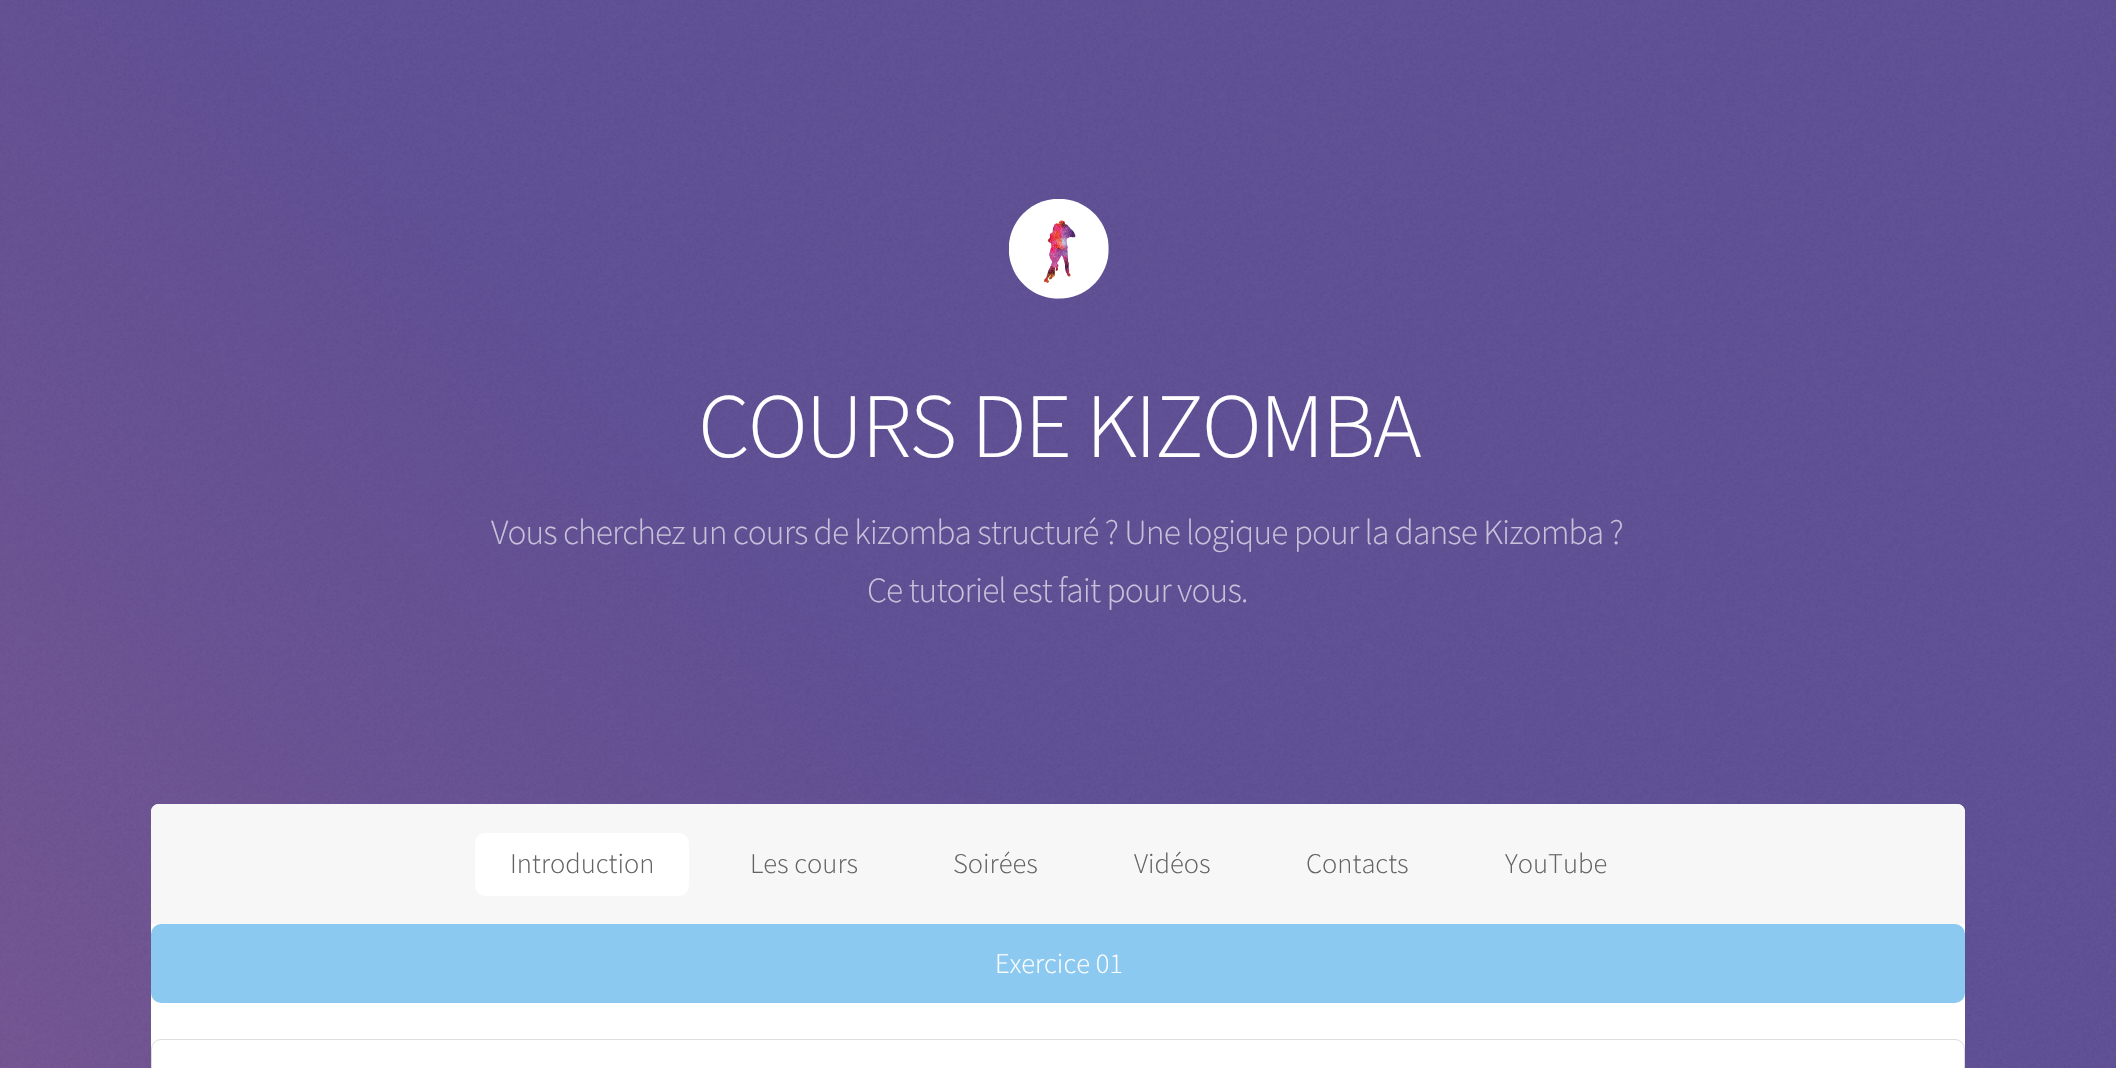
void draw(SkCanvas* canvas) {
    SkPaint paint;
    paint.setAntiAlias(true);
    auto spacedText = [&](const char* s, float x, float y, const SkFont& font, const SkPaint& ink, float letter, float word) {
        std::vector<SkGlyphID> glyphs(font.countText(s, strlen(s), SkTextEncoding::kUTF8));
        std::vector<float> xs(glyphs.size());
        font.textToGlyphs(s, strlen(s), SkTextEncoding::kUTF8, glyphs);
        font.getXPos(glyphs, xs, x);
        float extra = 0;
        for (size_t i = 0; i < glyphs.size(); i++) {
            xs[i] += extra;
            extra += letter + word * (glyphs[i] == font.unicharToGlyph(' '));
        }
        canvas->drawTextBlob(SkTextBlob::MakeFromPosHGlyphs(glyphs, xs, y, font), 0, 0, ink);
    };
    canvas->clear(0xFFFFFFFF);
    canvas->drawImageRect(SkImages::DeferredFromEncodedData(SkData::MakeFromFileName("img1.png")), SkRect::MakeXYWH(0, 0, 2116, 1068), SkSamplingOptions());
    canvas->drawImageRect(SkImages::DeferredFromEncodedData(SkData::MakeFromFileName("img2.png")), SkRect::MakeXYWH(1009, 199, 100, 100), SkSamplingOptions());
    SkFont font1(fontMgr->matchFamilyStyle("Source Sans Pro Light", SkFontStyle(300, SkFontStyle::kNormal_Width, SkFontStyle::kUpright_Slant)), 92);
    font1.setSubpixel(true);
    paint.setColor(0xFFFFFFFF);
    spacedText("COURS DE KIZOMBA", 698, 457, font1, paint, -2.25f, 0);
    SkFont font2(fontMgr->matchFamilyStyle("Source Sans Pro Light", SkFontStyle(300, SkFontStyle::kNormal_Width, SkFontStyle::kUpright_Slant)), 35.4f);
    font2.setSubpixel(true);
    paint.setColor(0xFFC7C1D9);
    spacedText("Vous cherchez un cours de kizomba structuré ? Une logique pour la danse Kizomba ?", 491, 544, font2, paint, -0.9f, 0);
    spacedText("Ce tutoriel est fait pour vous.", 867, 602, font2, paint, -0.9f, 0);
    paint.setColor(0xFFFFFFFF);
    canvas->drawRoundRect(SkRect::MakeXYWH(151, 804, 1814, 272), 8, 8, paint);
    paint.setColor(0xFFF7F7F7);
    canvas->drawPath(SkPathBuilder().moveTo(159, 804).lineTo(1957, 804).cubicTo(1961.5f, 804, 1965, 807.5f, 1965, 812).lineTo(1965, 924).lineTo(151, 924).lineTo(151, 812).cubicTo(151, 807.5f, 154.5f, 804, 159, 804).close().detach(), paint);
    paint.setColor(0xFFFFFFFF);
    canvas->drawRoundRect(SkRect::MakeXYWH(475, 833, 214, 63), 10, 10, paint);
    SkFont font3(fontMgr->matchFamilyStyle("Source Sans Pro Light", SkFontStyle(300, SkFontStyle::kNormal_Width, SkFontStyle::kUpright_Slant)), 28.5f);
    font3.setSubpixel(true);
    paint.setColor(0xFF636363);
    canvas->drawString("Introduction", 510, 873, font3, paint);
    canvas->drawString("Les cours", 750, 873, font3, paint);
    canvas->drawString("Soirées", 953, 873, font3, paint);
    canvas->drawString("Vidéos", 1134, 873, font3, paint);
    canvas->drawString("Contacts", 1306, 873, font3, paint);
    canvas->drawString("YouTube", 1505, 873, font3, paint);
    paint.setColor(0xFF8CC9F0);
    canvas->drawRoundRect(SkRect::MakeXYWH(151, 924, 1814, 79), 10, 10, paint);
    paint.setColor(0xFFFFFFFF);
    canvas->drawString("Exercice 01", 995, 973, font3, paint);
    paint.setStyle(SkPaint::kStroke_Style);
    paint.setStrokeWidth(1);
    paint.setColor(0xFFDDDDDD);
    canvas->drawRoundRect(SkRect::MakeXYWH(151.5f, 1039.5f, 1813, 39), 9.5f, 9.5f, paint);
}
